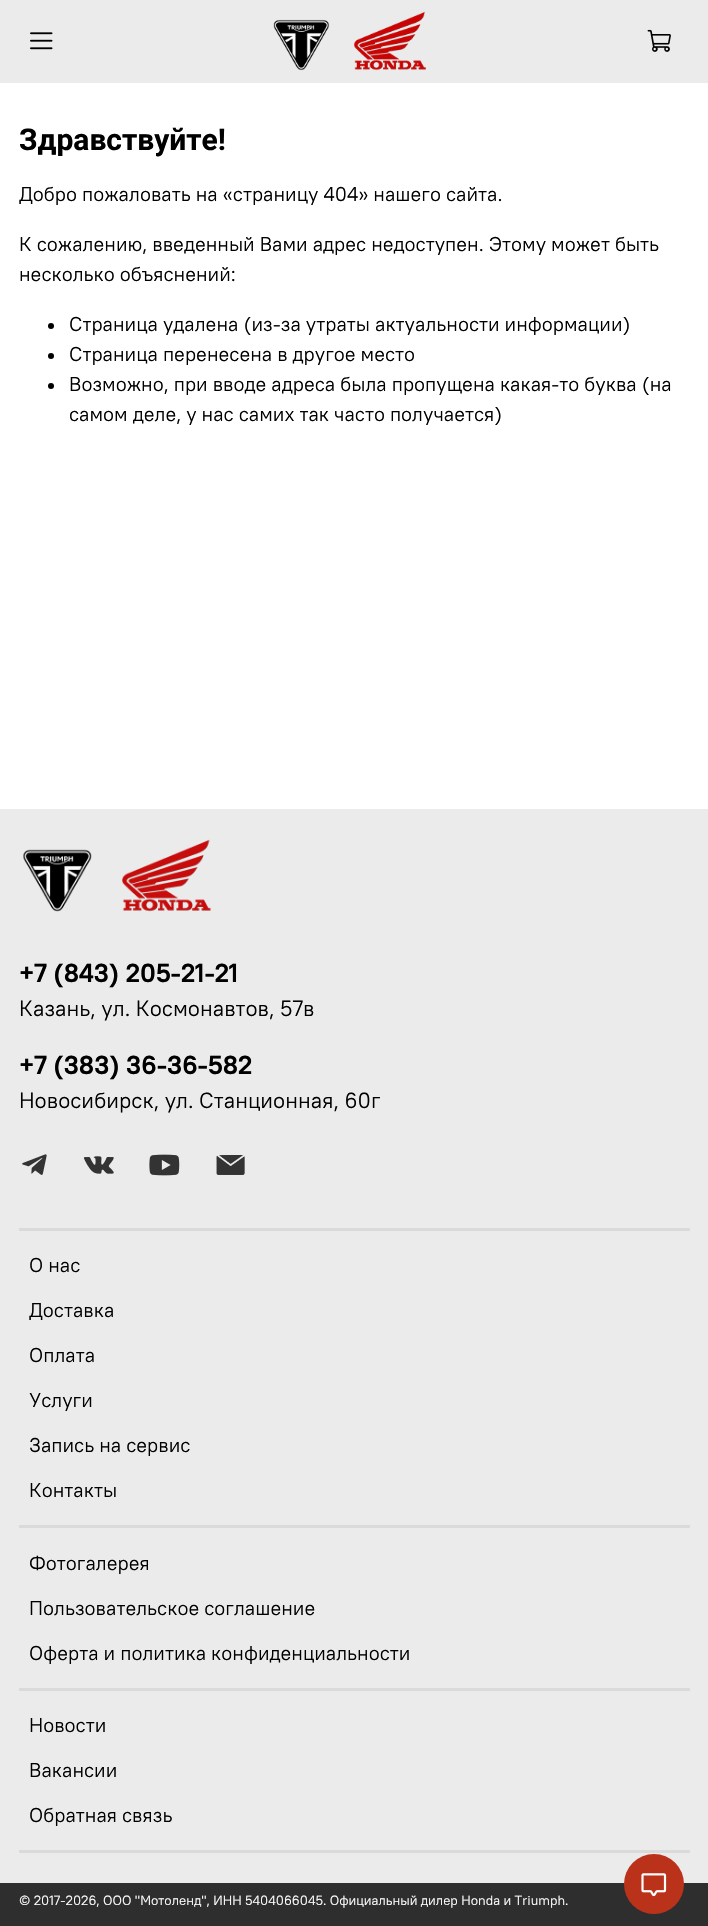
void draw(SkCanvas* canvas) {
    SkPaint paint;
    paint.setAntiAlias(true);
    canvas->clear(0xFFFFFFFF);
    paint.setColor(0xFFEBEBEB);
    canvas->drawRect(SkRect::MakeXYWH(0, 0, 708, 83), paint);
    canvas->drawImageRect(SkImages::DeferredFromEncodedData(SkData::MakeFromFileName("img1.png")), SkRect::MakeXYWH(30, 32, 23, 18), SkSamplingOptions());
    canvas->drawImageRect(SkImages::DeferredFromEncodedData(SkData::MakeFromFileName("img2.png")), SkRect::MakeXYWH(273, 11, 153, 60), SkSamplingOptions());
    canvas->drawImageRect(SkImages::DeferredFromEncodedData(SkData::MakeFromFileName("img3.png")), SkRect::MakeXYWH(647, 29, 24, 23), SkSamplingOptions());
    SkFont font1(fontMgr->matchFamilyStyle("Roboto", SkFontStyle::Bold()), 30);
    font1.setSubpixel(true);
    paint.setColor(0xFF000000);
    canvas->drawString("Здравствуйте!", 19, 150, font1, paint);
    SkFont font2(fontMgr->matchFamilyStyle("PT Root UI", SkFontStyle::Normal()), 20);
    font2.setSubpixel(true);
    canvas->drawString("Добро пожаловать на «страницу 404» нашего сайта.", 19, 201, font2, paint);
    canvas->drawString("К сожалению, введенный Вами адрес недоступен. Этому может быть", 19, 251, font2, paint);
    canvas->drawString("несколько объяснений:", 19, 281, font2, paint);
    canvas->drawCircle(51, 326, 3, paint);
    canvas->drawString("Страница удалена (из-за утраты актуальности информации)", 69, 331, font2, paint);
    canvas->drawCircle(51, 356, 3, paint);
    canvas->drawString("Страница перенесена в другое место", 69, 361, font2, paint);
    canvas->drawCircle(51, 386, 3, paint);
    canvas->drawString("Возможно, при вводе адреса была пропущена какая-то буква (на", 69, 391, font2, paint);
    canvas->drawString("самом деле, у нас самих так часто получается)", 69, 421, font2, paint);
    paint.setColor(0xFFEBEBEB);
    canvas->drawRect(SkRect::MakeXYWH(0, 809, 708, 1074), paint);
    canvas->drawImageRect(SkImages::DeferredFromEncodedData(SkData::MakeFromFileName("img4.png")), SkRect::MakeXYWH(23, 839, 188, 73), SkSamplingOptions());
    SkFont font3(fontMgr->matchFamilyStyle("PT Root UI", SkFontStyle::Bold()), 26);
    font3.setSubpixel(true);
    paint.setColor(0xFF000000);
    canvas->drawString("+7 (843) 205-21-21", 19, 982, font3, paint);
    SkFont font4(fontMgr->matchFamilyStyle("PT Root UI", SkFontStyle::Normal()), 22);
    font4.setSubpixel(true);
    canvas->drawString("Казань, ул. Космонавтов, 57в", 19, 1016, font4, paint);
    canvas->drawString("+7 (383) 36-36-582", 19, 1074, font3, paint);
    canvas->drawString("Новосибирск, ул. Станционная, 60г", 19, 1108, font4, paint);
    canvas->drawImageRect(SkImages::DeferredFromEncodedData(SkData::MakeFromFileName("img5.png")), SkRect::MakeXYWH(22, 1154, 25, 21), SkSamplingOptions());
    canvas->drawImageRect(SkImages::DeferredFromEncodedData(SkData::MakeFromFileName("img6.png")), SkRect::MakeXYWH(84, 1156, 30, 18), SkSamplingOptions());
    canvas->drawImageRect(SkImages::DeferredFromEncodedData(SkData::MakeFromFileName("img7.png")), SkRect::MakeXYWH(149, 1154, 31, 22), SkSamplingOptions());
    canvas->drawImageRect(SkImages::DeferredFromEncodedData(SkData::MakeFromFileName("img8.png")), SkRect::MakeXYWH(216, 1155, 29, 20), SkSamplingOptions());
    paint.setColor(0xFFDADADA);
    canvas->drawRect(SkRect::MakeXYWH(19, 1228, 671, 3), paint);
    paint.setColor(0xFF000000);
    canvas->drawString("О нас", 29, 1272, font2, paint);
    canvas->drawString("Доставка", 29, 1317, font2, paint);
    canvas->drawString("Оплата", 29, 1362, font2, paint);
    canvas->drawString("Услуги", 29, 1407, font2, paint);
    canvas->drawString("Запись на сервис", 29, 1452, font2, paint);
    canvas->drawString("Контакты", 29, 1497, font2, paint);
    paint.setColor(0xFFDADADA);
    canvas->drawRect(SkRect::MakeXYWH(19, 1525, 671, 3), paint);
    paint.setColor(0xFF000000);
    canvas->drawString("Фотогалерея", 29, 1570, font2, paint);
    canvas->drawString("Пользовательское соглашение", 29, 1615, font2, paint);
    canvas->drawString("Оферта и политика конфиденциальности", 29, 1660, font2, paint);
    paint.setColor(0xFFDADADA);
    canvas->drawRect(SkRect::MakeXYWH(19, 1688, 671, 3), paint);
    canvas->drawRect(SkRect::MakeXYWH(19, 1850, 671, 3), paint);
    paint.setColor(0xFF000000);
    canvas->drawString("Новости", 29, 1732, font2, paint);
    canvas->drawString("Вакансии", 29, 1777, font2, paint);
    canvas->drawString("Обратная связь", 29, 1822, font2, paint);
    paint.setColor(0xFF2E2E2E);
    canvas->drawRect(SkRect::MakeXYWH(0, 1883, 708, 43), paint);
    SkFont font5(fontMgr->matchFamilyStyle("PT Root UI", SkFontStyle::Normal()), 13.35f);
    font5.setSubpixel(true);
    paint.setColor(0xFFFFFFFF);
    canvas->drawString("© 2017-2026, ООО \"Мотоленд\", ИНН 5404066045. Официальный дилер Honda и Triumph.", 19, 1905, font5, paint);
    paint.setColor(0xFFBB321B);
    canvas->drawCircle(654, 1884, 30, paint);
    canvas->drawImageRect(SkImages::DeferredFromEncodedData(SkData::MakeFromFileName("img9.png")), SkRect::MakeXYWH(641, 1873, 26, 24), SkSamplingOptions());
}
